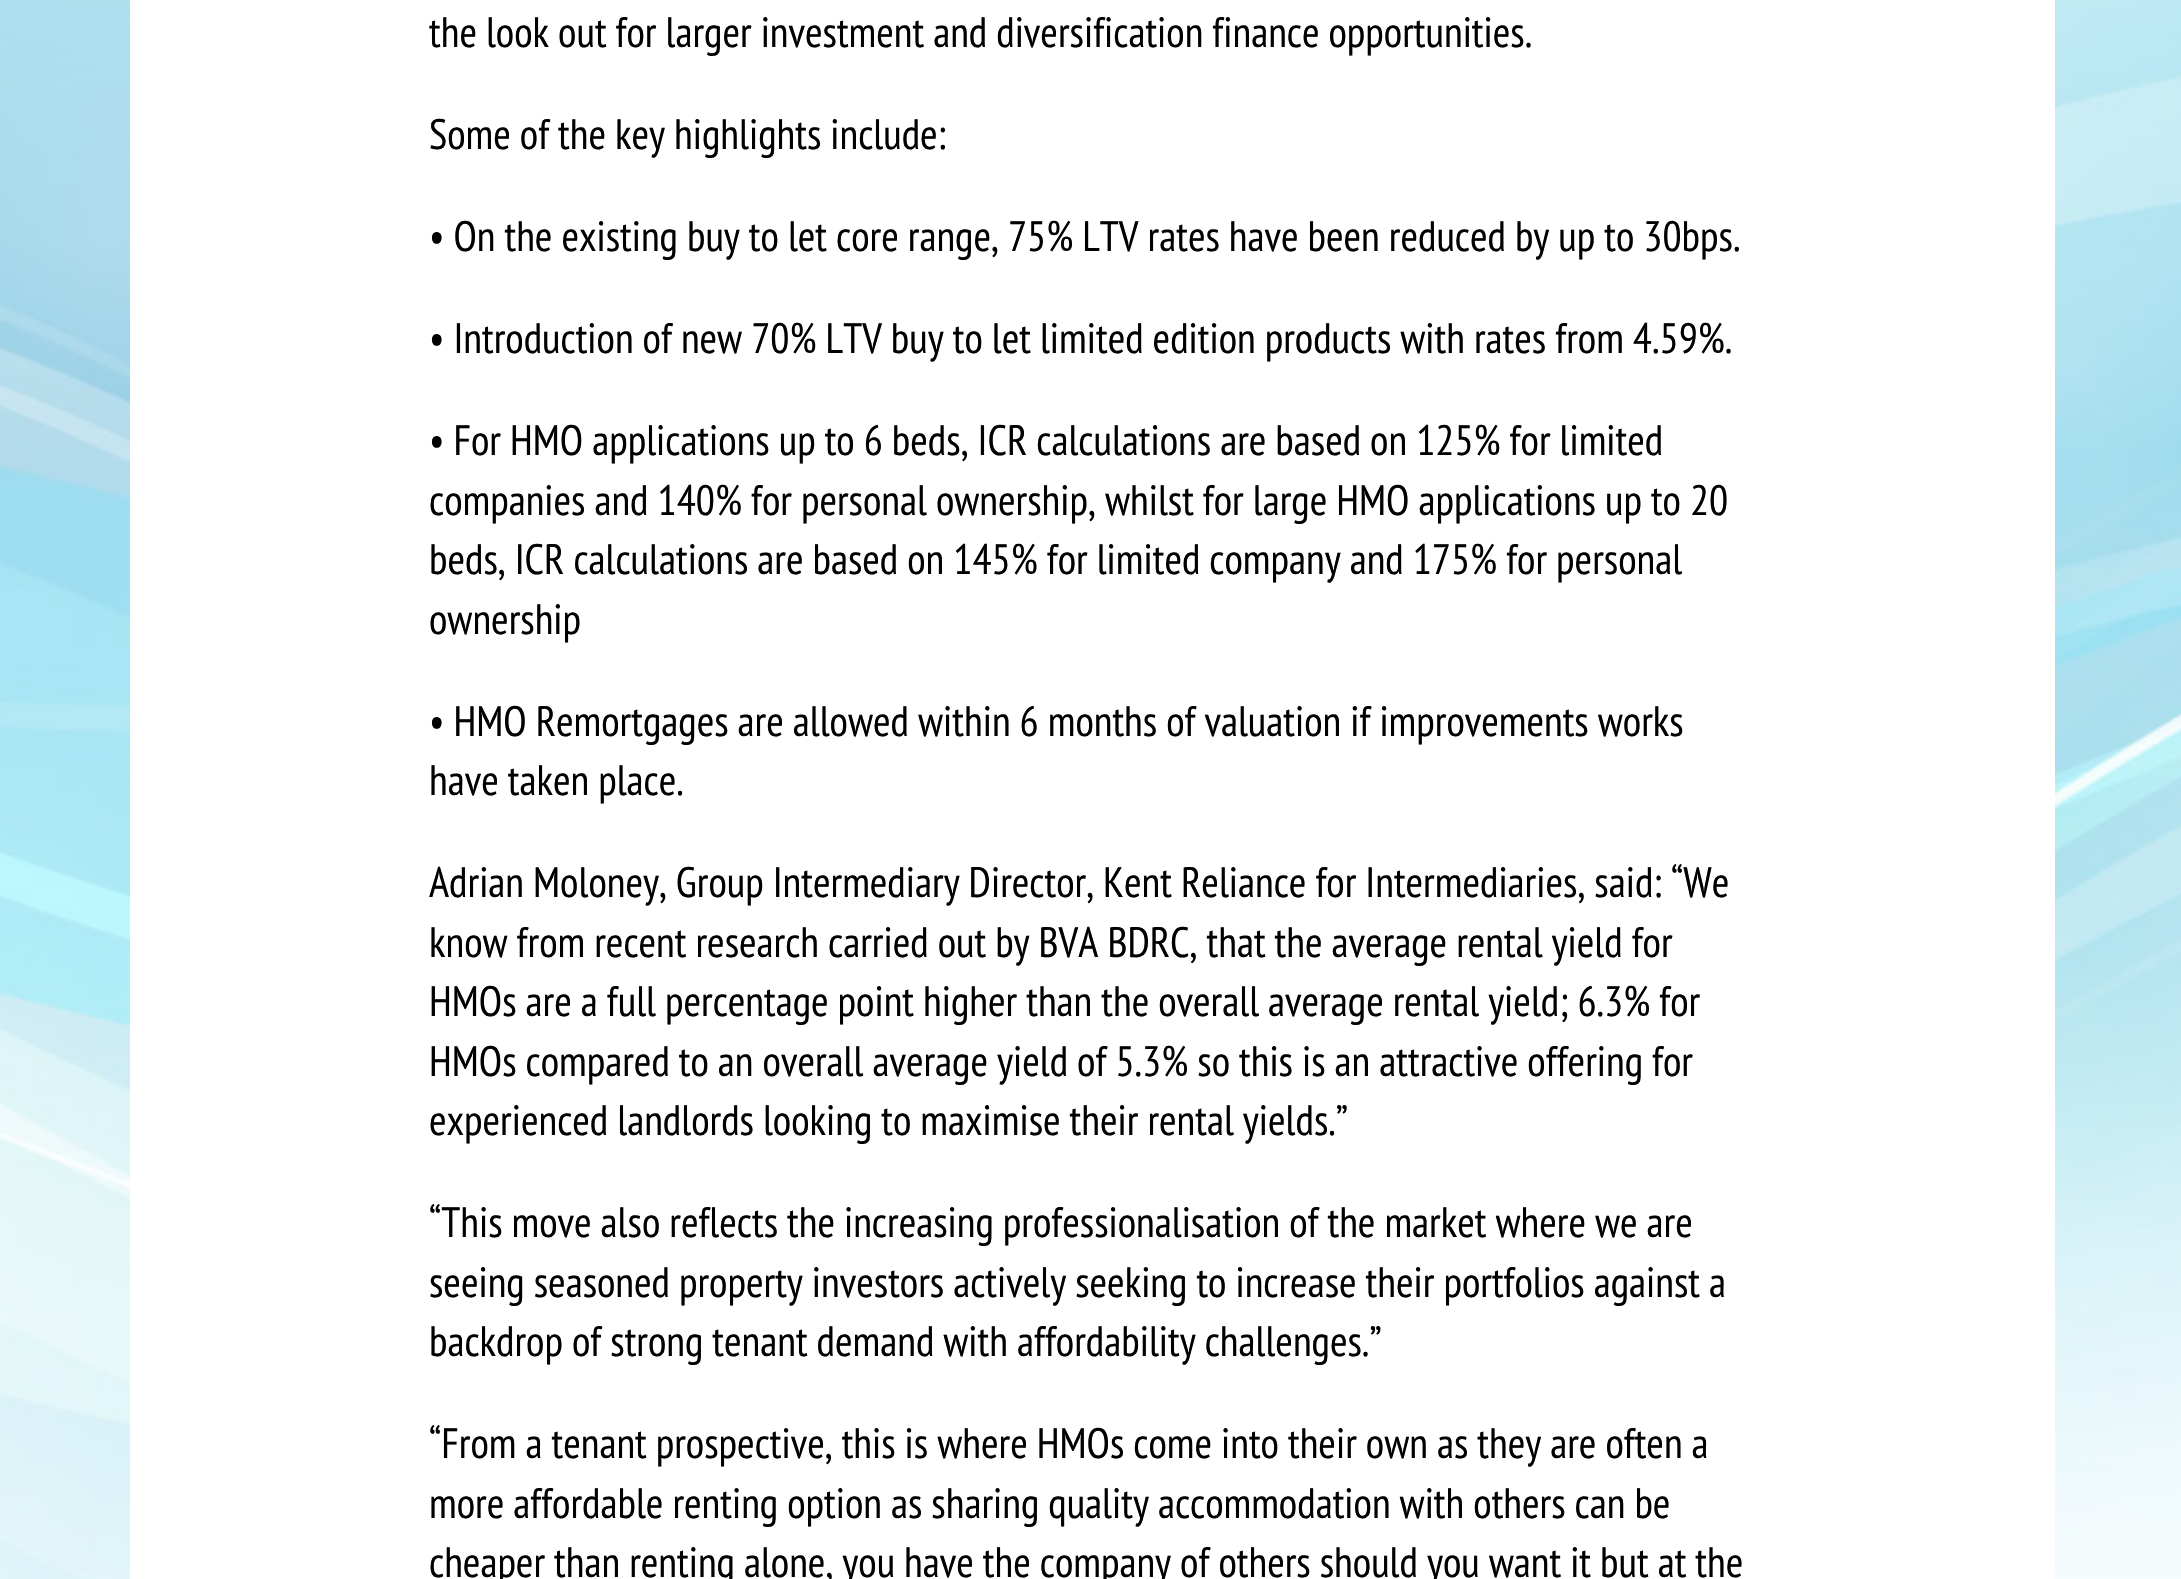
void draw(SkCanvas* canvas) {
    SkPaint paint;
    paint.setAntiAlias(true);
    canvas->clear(0xFFFFFFFF);
    canvas->drawImageRect(SkImages::DeferredFromEncodedData(SkData::MakeFromFileName("img1.png")), SkRect::MakeXYWH(0, 0, 2181, 1579), SkSamplingOptions());
    paint.setColor(0xFFFFFFFF);
    canvas->drawRect(SkRect::MakeXYWH(130, 0, 1925, 1579), paint);
    SkFont font1(fontMgr->matchFamilyStyle("PT Sans Narrow", SkFontStyle::Normal()), 42.5f);
    font1.setSubpixel(true);
    paint.setColor(0xFF000000);
    canvas->drawString("the look out for larger investment and diversification finance opportunities.", 429, 47, font1, paint);
    canvas->drawString("Some of the key highlights include:", 429, 149, font1, paint);
    canvas->drawString("• On the existing buy to let core range, 75% LTV rates have been reduced by up to 30bps.", 429, 251, font1, paint);
    canvas->drawString("• Introduction of new 70% LTV buy to let limited edition products with rates from 4.59%.", 429, 353, font1, paint);
    canvas->drawString("• For HMO applications up to 6 beds, ICR calculations are based on 125% for limited", 429, 455, font1, paint);
    canvas->drawString("companies and 140% for personal ownership, whilst for large HMO applications up to 20", 429, 515, font1, paint);
    canvas->drawString("beds, ICR calculations are based on 145% for limited company and 175% for personal", 429, 574, font1, paint);
    canvas->drawString("ownership", 429, 634, font1, paint);
    canvas->drawString("• HMO Remortgages are allowed within 6 months of valuation if improvements works", 429, 736, font1, paint);
    canvas->drawString("have taken place.", 429, 795, font1, paint);
    canvas->drawString("Adrian Moloney, Group Intermediary Director, Kent Reliance for Intermediaries, said: “We", 429, 897, font1, paint);
    canvas->drawString("know from recent research carried out by BVA BDRC, that the average rental yield for", 429, 957, font1, paint);
    canvas->drawString("HMOs are a full percentage point higher than the overall average rental yield; 6.3% for", 429, 1016, font1, paint);
    canvas->drawString("HMOs compared to an overall average yield of 5.3% so this is an attractive offering for", 429, 1076, font1, paint);
    canvas->drawString("experienced landlords looking to maximise their rental yields.”", 429, 1135, font1, paint);
    canvas->drawString("“This move also reflects the increasing professionalisation of the market where we are", 429, 1237, font1, paint);
    canvas->drawString("seeing seasoned property investors actively seeking to increase their portfolios against a", 429, 1297, font1, paint);
    canvas->drawString("backdrop of strong tenant demand with affordability challenges.”", 429, 1356, font1, paint);
    canvas->drawString("“From a tenant prospective, this is where HMOs come into their own as they are often a", 429, 1458, font1, paint);
    canvas->drawString("more affordable renting option as sharing quality accommodation with others can be", 429, 1518, font1, paint);
    canvas->drawString("cheaper than renting alone, you have the company of others should you want it but at the", 429, 1577, font1, paint);
}
